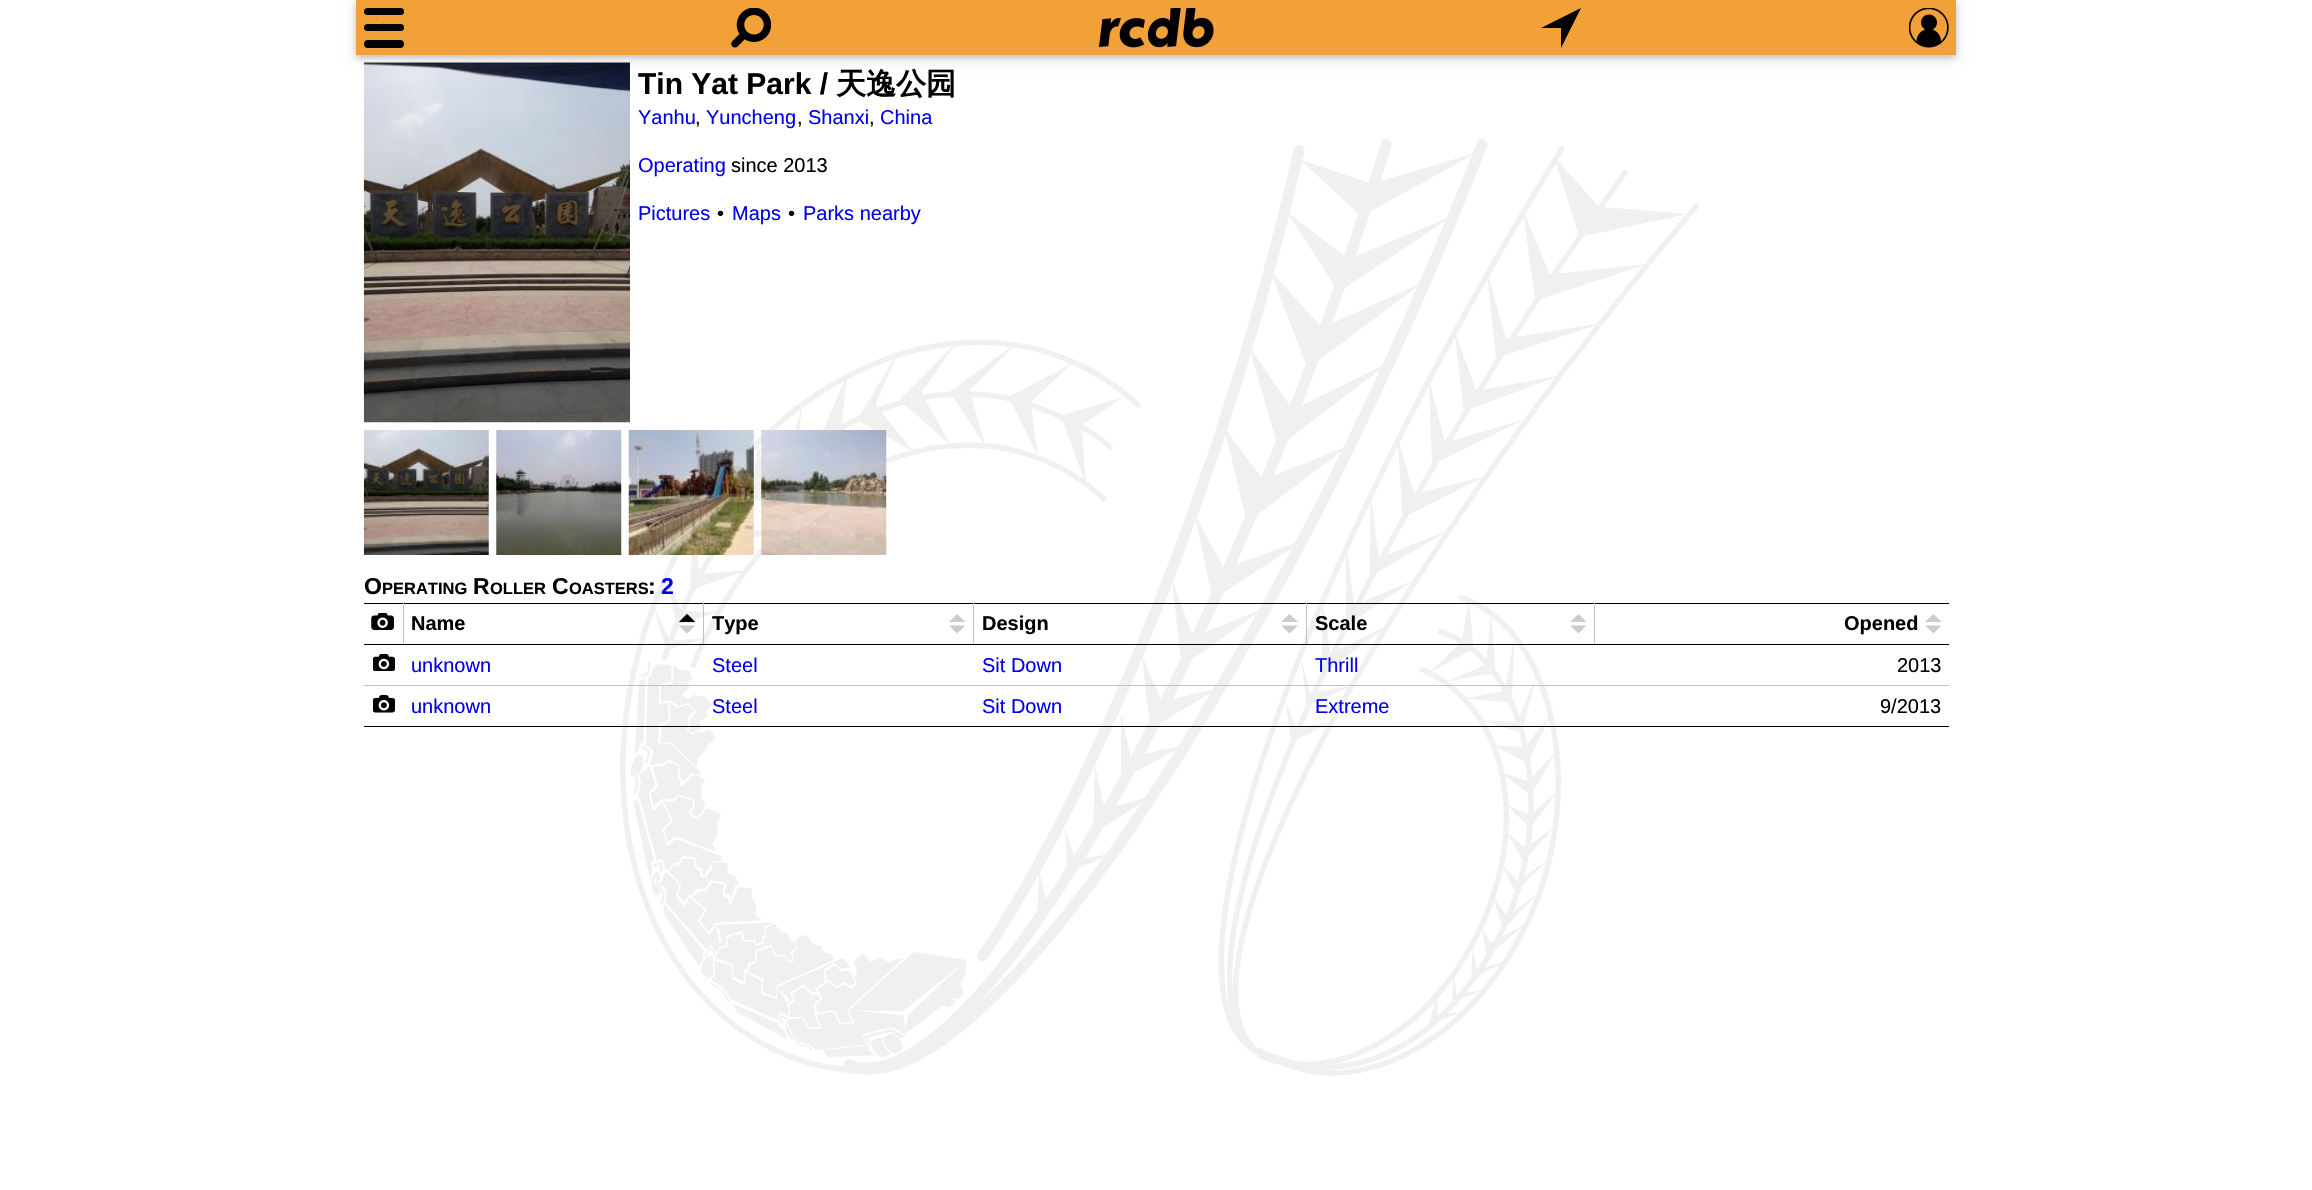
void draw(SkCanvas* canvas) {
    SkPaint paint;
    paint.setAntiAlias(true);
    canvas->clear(0xFFFFFFFF);
    canvas->drawImageRect(SkImages::DeferredFromEncodedData(SkData::MakeFromFileName("img9.png")), SkRect::MakeXYWH(620, 139, 1079, 937), SkSamplingOptions());
    canvas->drawImageRect(SkImages::DeferredFromEncodedData(SkData::MakeFromFileName("img4.png")), SkRect::MakeXYWH(363, 62, 267, 361), SkSamplingOptions());
    canvas->save();
    canvas->clipPath(SkPathBuilder(SkPathFillType::kEvenOdd).moveTo(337, 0).lineTo(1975, 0).lineTo(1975, 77).lineTo(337, 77).close().moveTo(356, 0).lineTo(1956, 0).lineTo(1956, 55).lineTo(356, 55).close().detach(), true);
    paint.setColor(0x1F000000);
    paint.setMaskFilter(SkMaskFilter::MakeBlur(kNormal_SkBlurStyle, 6));
    canvas->drawRect(SkRect::MakeXYWH(356, 3, 1600, 55), paint);
    paint.setMaskFilter(nullptr);
    canvas->restore();
    canvas->save();
    canvas->clipPath(SkPathBuilder(SkPathFillType::kEvenOdd).moveTo(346, 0).lineTo(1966, 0).lineTo(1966, 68).lineTo(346, 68).close().moveTo(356, 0).lineTo(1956, 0).lineTo(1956, 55).lineTo(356, 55).close().detach(), true);
    paint.setColor(0x29000000);
    paint.setMaskFilter(SkMaskFilter::MakeBlur(kNormal_SkBlurStyle, 3));
    canvas->drawRect(SkRect::MakeXYWH(356, 3, 1600, 55), paint);
    paint.setMaskFilter(nullptr);
    canvas->restore();
    paint.setColor(0xCCEF8A08);
    canvas->drawRect(SkRect::MakeXYWH(356, 0, 1600, 55), paint);
    paint.setColor(0xFF000000);
    canvas->drawRoundRect(SkRect::MakeXYWH(364, 8, 40, 7), 3.5f, 3.5f, paint);
    canvas->drawRoundRect(SkRect::MakeXYWH(364, 24, 40, 7), 3.5f, 3.5f, paint);
    canvas->drawPath(SkPathBuilder().moveTo(381, 25).cubicTo(384.5f, 21.5f, 390, 26.5f, 386.5f, 30).cubicTo(383, 33.5f, 377.5f, 28.5f, 381, 25).close().detach(), paint);
    canvas->drawRoundRect(SkRect::MakeXYWH(364, 40, 40, 8), 4, 4, paint);
    canvas->drawImageRect(SkImages::DeferredFromEncodedData(SkData::MakeFromFileName("img1.png")), SkRect::MakeXYWH(731, 8, 40, 40), SkSamplingOptions());
    canvas->drawImageRect(SkImages::DeferredFromEncodedData(SkData::MakeFromFileName("img2.png")), SkRect::MakeXYWH(1099, 8, 115, 40), SkSamplingOptions());
    canvas->drawPath(SkPathBuilder().moveTo(1581, 8).lineTo(1561, 48).lineTo(1561, 28).lineTo(1541, 28).close().detach(), paint);
    canvas->drawImageRect(SkImages::DeferredFromEncodedData(SkData::MakeFromFileName("img3.png")), SkRect::MakeXYWH(1909, 8, 40, 40), SkSamplingOptions());
    SkFont font1(fontMgr->matchFamilyStyle("Liberation Sans", SkFontStyle::Bold()), 30);
    font1.setSubpixel(true);
    canvas->drawString("Tin Yat Park /", 638, 94, font1, paint);
    SkFont font2(fontMgr->matchFamilyStyle("WenQuanYi Zen Hei", SkFontStyle::Bold()), 30);
    font2.setSubpixel(true);
    canvas->drawString("天逸公园", 836, 94, font2, paint);
    SkFont font3(fontMgr->matchFamilyStyle("Liberation Sans", SkFontStyle::Normal()), 20);
    font3.setSubpixel(true);
    paint.setColor(0xFF0000EE);
    canvas->drawString("Yanhu", 638, 124, font3, paint);
    paint.setColor(0xFF000000);
    canvas->drawString(",", 695, 124, font3, paint);
    paint.setColor(0xFF0000EE);
    canvas->drawString("Yuncheng", 706, 124, font3, paint);
    paint.setColor(0xFF000000);
    canvas->drawString(",", 797, 124, font3, paint);
    paint.setColor(0xFF0000EE);
    canvas->drawString("Shanxi", 808, 124, font3, paint);
    paint.setColor(0xFF000000);
    canvas->drawString(",", 869, 124, font3, paint);
    paint.setColor(0xFF0000EE);
    canvas->drawString("China", 880, 124, font3, paint);
    canvas->drawString("Operating", 638, 172, font3, paint);
    paint.setColor(0xFF000000);
    canvas->drawString("since 2013", 731, 172, font3, paint);
    paint.setColor(0xFF0000EE);
    canvas->drawString("Pictures", 638, 220, font3, paint);
    paint.setColor(0xFF000000);
    canvas->drawString("•", 717, 220, font3, paint);
    paint.setColor(0xFF0000EE);
    canvas->drawString("Maps", 732, 220, font3, paint);
    paint.setColor(0xFF000000);
    canvas->drawString("•", 788, 220, font3, paint);
    paint.setColor(0xFF0000EE);
    canvas->drawString("Parks nearby", 803, 220, font3, paint);
    canvas->drawImageRect(SkImages::DeferredFromEncodedData(SkData::MakeFromFileName("img5.png")), SkRect::MakeXYWH(363, 430, 126, 125), SkSamplingOptions());
    canvas->drawImageRect(SkImages::DeferredFromEncodedData(SkData::MakeFromFileName("img6.png")), SkRect::MakeXYWH(496, 430, 126, 125), SkSamplingOptions());
    canvas->drawImageRect(SkImages::DeferredFromEncodedData(SkData::MakeFromFileName("img7.png")), SkRect::MakeXYWH(628, 430, 126, 125), SkSamplingOptions());
    canvas->drawImageRect(SkImages::DeferredFromEncodedData(SkData::MakeFromFileName("img8.png")), SkRect::MakeXYWH(761, 430, 126, 125), SkSamplingOptions());
    SkFont font4(fontMgr->matchFamilyStyle("Liberation Sans", SkFontStyle::Bold()), 23);
    font4.setSubpixel(true);
    paint.setColor(0xFF000000);
    canvas->drawString("O", 364, 594, font4, paint);
    SkFont font5(fontMgr->matchFamilyStyle("Liberation Sans", SkFontStyle::Bold()), 16.5f);
    font5.setSubpixel(true);
    canvas->drawString("PERATING", 382, 594, font5, paint);
    canvas->drawString("R", 473, 594, font4, paint);
    canvas->drawString("OLLER", 490, 594, font5, paint);
    canvas->drawString("C", 552, 594, font4, paint);
    canvas->drawString("OASTERS", 569, 594, font5, paint);
    canvas->drawString(":", 648, 594, font4, paint);
    paint.setColor(0xFF0000EE);
    canvas->drawString("2", 661, 594, font4, paint);
    paint.setColor(0xFF000000);
    canvas->drawRect(SkRect::MakeXYWH(364, 603, 1585, 1), paint);
    paint.setColor(0xFFC0C0C0);
    canvas->drawRect(SkRect::MakeXYWH(403, 603, 1, 42), paint);
    paint.setColor(0xFF000000);
    canvas->drawRect(SkRect::MakeXYWH(364, 644, 40, 1), paint);
    canvas->drawImageRect(SkImages::DeferredFromEncodedData(SkData::MakeFromFileName("img10.png")), SkRect::MakeXYWH(371, 613, 23, 17), SkSamplingOptions());
    canvas->drawImageRect(SkImages::DeferredFromEncodedData(SkData::MakeFromFileName("img11.png")), SkRect::MakeXYWH(679, 614, 16, 20), SkSamplingOptions());
    paint.setColor(0xFFC0C0C0);
    canvas->drawRect(SkRect::MakeXYWH(703, 603, 1, 42), paint);
    paint.setColor(0xFF000000);
    canvas->drawRect(SkRect::MakeXYWH(404, 644, 300, 1), paint);
    SkFont font6(fontMgr->matchFamilyStyle("Liberation Sans", SkFontStyle::Bold()), 20);
    font6.setSubpixel(true);
    canvas->drawString("Name", 411, 630, font6, paint);
    paint.setColor(0xFFCCCCCC);
    canvas->drawPath(SkPathBuilder().moveTo(949, 622).lineTo(965.5f, 622).lineTo(957, 614).close().moveTo(949, 625.5f).lineTo(965.5f, 625.5f).lineTo(957, 633.5f).close().detach(), paint);
    paint.setColor(0xFFC0C0C0);
    canvas->drawRect(SkRect::MakeXYWH(973, 603, 1, 42), paint);
    paint.setColor(0xFF000000);
    canvas->drawRect(SkRect::MakeXYWH(704, 644, 270, 1), paint);
    canvas->drawString("Type", 712, 630, font6, paint);
    paint.setColor(0xFFCCCCCC);
    canvas->drawPath(SkPathBuilder().moveTo(1281, 622).lineTo(1298, 622).lineTo(1289.5f, 614).close().moveTo(1281, 625.5f).lineTo(1298, 625.5f).lineTo(1289.5f, 633.5f).close().detach(), paint);
    paint.setColor(0xFFC0C0C0);
    canvas->drawRect(SkRect::MakeXYWH(1306, 603, 1, 42), paint);
    paint.setColor(0xFF000000);
    canvas->drawRect(SkRect::MakeXYWH(974, 644, 334, 1), paint);
    canvas->drawString("Design", 982, 630, font6, paint);
    paint.setColor(0xFFCCCCCC);
    canvas->drawPath(SkPathBuilder().moveTo(1570, 622).lineTo(1586.5f, 622).lineTo(1578.5f, 614).close().moveTo(1570, 625.5f).lineTo(1586.5f, 625.5f).lineTo(1578.5f, 633.5f).close().detach(), paint);
    paint.setColor(0xFFC0C0C0);
    canvas->drawRect(SkRect::MakeXYWH(1594, 603, 1, 42), paint);
    paint.setColor(0xFF000000);
    canvas->drawRect(SkRect::MakeXYWH(1308, 644, 641, 1), paint);
    canvas->drawString("Scale", 1315, 630, font6, paint);
    paint.setColor(0xFFCCCCCC);
    canvas->drawPath(SkPathBuilder().moveTo(1925, 622).lineTo(1941.5f, 622).lineTo(1933.5f, 614).close().moveTo(1925, 625.5f).lineTo(1941.5f, 625.5f).lineTo(1933.5f, 633.5f).close().detach(), paint);
    paint.setColor(0xFF000000);
    canvas->drawString("Opened", 1844, 630, font6, paint);
    paint.setColor(0xFFC0C0C0);
    canvas->drawRect(SkRect::MakeXYWH(364, 685, 1585, 1), paint);
    canvas->drawImageRect(SkImages::DeferredFromEncodedData(SkData::MakeFromFileName("img12.png")), SkRect::MakeXYWH(373, 654, 22, 17), SkSamplingOptions());
    paint.setColor(0xFF0000EE);
    canvas->drawString("unknown", 411, 672, font3, paint);
    canvas->drawString("Steel", 712, 672, font3, paint);
    canvas->drawString("Sit Down", 982, 672, font3, paint);
    canvas->drawString("Thrill", 1315, 672, font3, paint);
    paint.setColor(0xFF000000);
    canvas->drawString("2013", 1897, 672, font3, paint);
    canvas->drawRect(SkRect::MakeXYWH(364, 726, 1585, 1), paint);
    canvas->drawImageRect(SkImages::DeferredFromEncodedData(SkData::MakeFromFileName("img13.png")), SkRect::MakeXYWH(373, 695, 22, 18), SkSamplingOptions());
    paint.setColor(0xFF0000EE);
    canvas->drawString("unknown", 411, 713, font3, paint);
    canvas->drawString("Steel", 712, 713, font3, paint);
    canvas->drawString("Sit Down", 982, 713, font3, paint);
    canvas->drawString("Extreme", 1315, 713, font3, paint);
    paint.setColor(0xFF000000);
    canvas->drawString("9/2013", 1880, 713, font3, paint);
}
